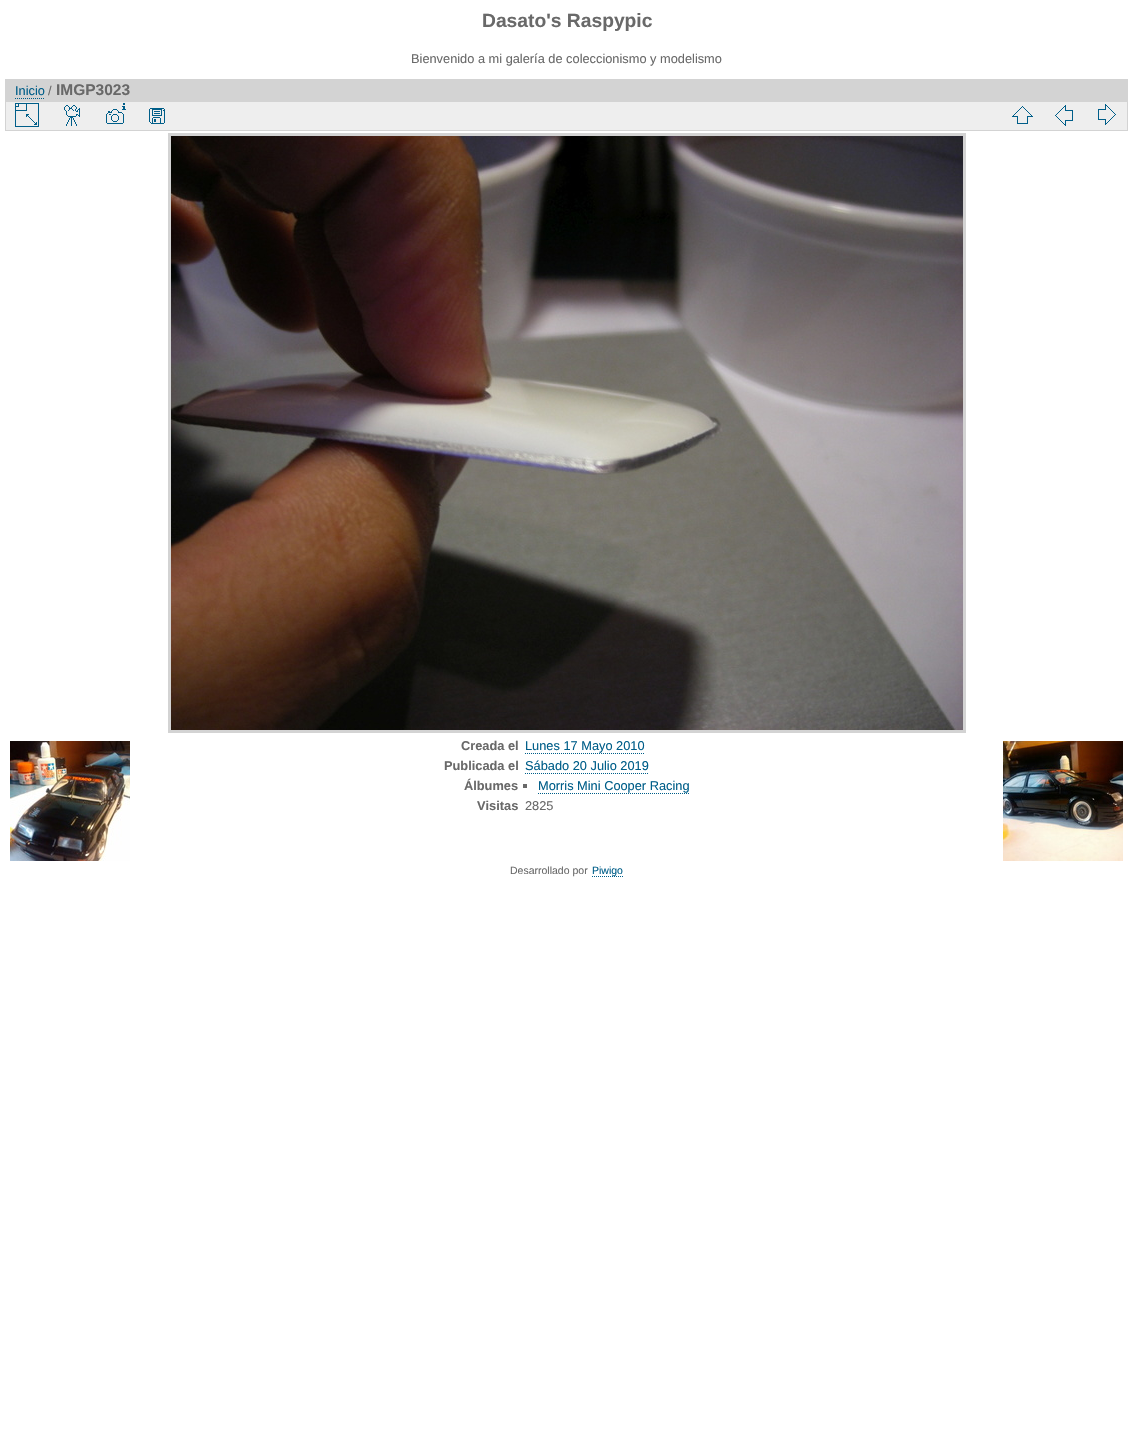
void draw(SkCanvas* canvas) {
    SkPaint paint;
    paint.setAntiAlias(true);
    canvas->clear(0xFFFFFFFF);
    SkFont font1(fontMgr->matchFamilyStyle("Liberation Sans", SkFontStyle::Bold()), 19.25f);
    font1.setSubpixel(true);
    paint.setColor(0xFF696969);
    canvas->drawString("Dasato's Raspypic", 482, 27, font1, paint);
    SkFont font2(fontMgr->matchFamilyStyle("Liberation Sans", SkFontStyle::Normal()), 12.8f);
    font2.setSubpixel(true);
    canvas->drawString("Bienvenido a mi galería de coleccionismo y modelismo", 411, 63, font2, paint);
    paint.setColor(0xFFD3D3D3);
    canvas->drawRect(SkRect::MakeXYWH(5, 79, 1123, 22), paint);
    paint.setColor(0xFF005E89);
    canvas->drawString("Inicio", 15, 95, font2, paint);
    paint.setStyle(SkPaint::kStroke_Style);
    paint.setStrokeWidth(1);
    paint.setPathEffect(SkDashPathEffect::Make({{1, 1}}, 0));
    canvas->drawPath(SkPathBuilder().moveTo(15, 98.5f).lineTo(45, 98.5f).detach(), paint);
    paint.setPathEffect(nullptr);
    paint.setStyle(SkPaint::kFill_Style);
    paint.setColor(0xFF696969);
    canvas->drawString("/", 48, 95, font2, paint);
    SkFont font3(fontMgr->matchFamilyStyle("Liberation Sans", SkFontStyle::Bold()), 15.5f);
    font3.setSubpixel(true);
    canvas->drawString("IMGP3023", 56, 95, font3, paint);
    paint.setColor(0xFFEEEEEE);
    canvas->drawRect(SkRect::MakeXYWH(5.5f, 101.5f, 1122, 29), paint);
    paint.setStyle(SkPaint::kStroke_Style);
    paint.setColor(0xFFD3D3D3);
    canvas->drawRect(SkRect::MakeXYWH(5.5f, 101.5f, 1122, 29), paint);
    canvas->drawImageRect(SkImages::DeferredFromEncodedData(SkData::MakeFromFileName("img1.png")), SkRect::MakeXYWH(15, 103, 24, 24), SkSamplingOptions());
    canvas->drawImageRect(SkImages::DeferredFromEncodedData(SkData::MakeFromFileName("img2.png")), SkRect::MakeXYWH(64, 105, 16, 21), SkSamplingOptions());
    canvas->drawImageRect(SkImages::DeferredFromEncodedData(SkData::MakeFromFileName("img3.png")), SkRect::MakeXYWH(106, 103, 20, 21), SkSamplingOptions());
    canvas->drawImageRect(SkImages::DeferredFromEncodedData(SkData::MakeFromFileName("img4.png")), SkRect::MakeXYWH(149, 108, 16, 16), SkSamplingOptions());
    canvas->drawImageRect(SkImages::DeferredFromEncodedData(SkData::MakeFromFileName("img5.png")), SkRect::MakeXYWH(1012, 106, 21, 18), SkSamplingOptions());
    canvas->drawImageRect(SkImages::DeferredFromEncodedData(SkData::MakeFromFileName("img6.png")), SkRect::MakeXYWH(1055, 105, 18, 21), SkSamplingOptions());
    canvas->drawImageRect(SkImages::DeferredFromEncodedData(SkData::MakeFromFileName("img7.png")), SkRect::MakeXYWH(1098, 104, 18, 21), SkSamplingOptions());
    paint.setStrokeWidth(3);
    canvas->drawRect(SkRect::MakeXYWH(169.5f, 134.5f, 795, 597), paint);
    canvas->drawImageRect(SkImages::DeferredFromEncodedData(SkData::MakeFromFileName("img8.png")), SkRect::MakeXYWH(171, 136, 792, 594), SkSamplingOptions());
    SkFont font4(fontMgr->matchFamilyStyle("Liberation Sans", SkFontStyle::Bold()), 12.8f);
    font4.setSubpixel(true);
    paint.setStyle(SkPaint::kFill_Style);
    paint.setColor(0xFF696969);
    canvas->drawString("Creada el", 461, 750, font4, paint);
    paint.setColor(0xFF005E89);
    canvas->drawString("Lunes 17 Mayo 2010", 525, 750, font2, paint);
    paint.setStyle(SkPaint::kStroke_Style);
    paint.setStrokeWidth(1);
    paint.setPathEffect(SkDashPathEffect::Make({{1, 1}}, 0));
    canvas->drawPath(SkPathBuilder().moveTo(525, 753.5f).lineTo(644, 753.5f).detach(), paint);
    paint.setPathEffect(nullptr);
    paint.setStyle(SkPaint::kFill_Style);
    paint.setColor(0xFF696969);
    canvas->drawString("Publicada el", 444, 770, font4, paint);
    paint.setColor(0xFF005E89);
    canvas->drawString("Sábado 20 Julio 2019", 525, 770, font2, paint);
    paint.setStyle(SkPaint::kStroke_Style);
    paint.setPathEffect(SkDashPathEffect::Make({{1, 1}}, 0));
    canvas->drawPath(SkPathBuilder().moveTo(525, 773.5f).lineTo(649, 773.5f).detach(), paint);
    paint.setPathEffect(nullptr);
    paint.setStyle(SkPaint::kFill_Style);
    paint.setColor(0xFF696969);
    canvas->drawString("Álbumes", 464, 790, font4, paint);
    canvas->drawRect(SkRect::MakeXYWH(523, 784, 4, 4), paint);
    paint.setColor(0xFF005E89);
    canvas->drawString("Morris Mini Cooper Racing", 538, 790, font2, paint);
    paint.setStyle(SkPaint::kStroke_Style);
    paint.setPathEffect(SkDashPathEffect::Make({{1, 1}}, 0));
    canvas->drawPath(SkPathBuilder().moveTo(538, 793.5f).lineTo(689, 793.5f).detach(), paint);
    paint.setPathEffect(nullptr);
    paint.setStyle(SkPaint::kFill_Style);
    paint.setColor(0xFF696969);
    canvas->drawString("Visitas", 477, 810, font4, paint);
    canvas->drawString("2825", 525, 810, font2, paint);
    canvas->drawImageRect(SkImages::DeferredFromEncodedData(SkData::MakeFromFileName("img9.png")), SkRect::MakeXYWH(10, 741, 120, 120), SkSamplingOptions());
    canvas->drawImageRect(SkImages::DeferredFromEncodedData(SkData::MakeFromFileName("img10.png")), SkRect::MakeXYWH(1003, 741, 120, 120), SkSamplingOptions());
    SkFont font5(fontMgr->matchFamilyStyle("Liberation Sans", SkFontStyle::Normal()), 10.5f);
    font5.setSubpixel(true);
    canvas->drawString("Desarrollado por", 510, 874, font5, paint);
    paint.setStyle(SkPaint::kStroke_Style);
    paint.setColor(0xFF005E89);
    paint.setPathEffect(SkDashPathEffect::Make({{1, 1}}, 0));
    canvas->drawPath(SkPathBuilder().moveTo(592, 876.5f).lineTo(623, 876.5f).detach(), paint);
    paint.setPathEffect(nullptr);
    paint.setStyle(SkPaint::kFill_Style);
    canvas->drawString("Piwigo", 592, 874, font5, paint);
}
